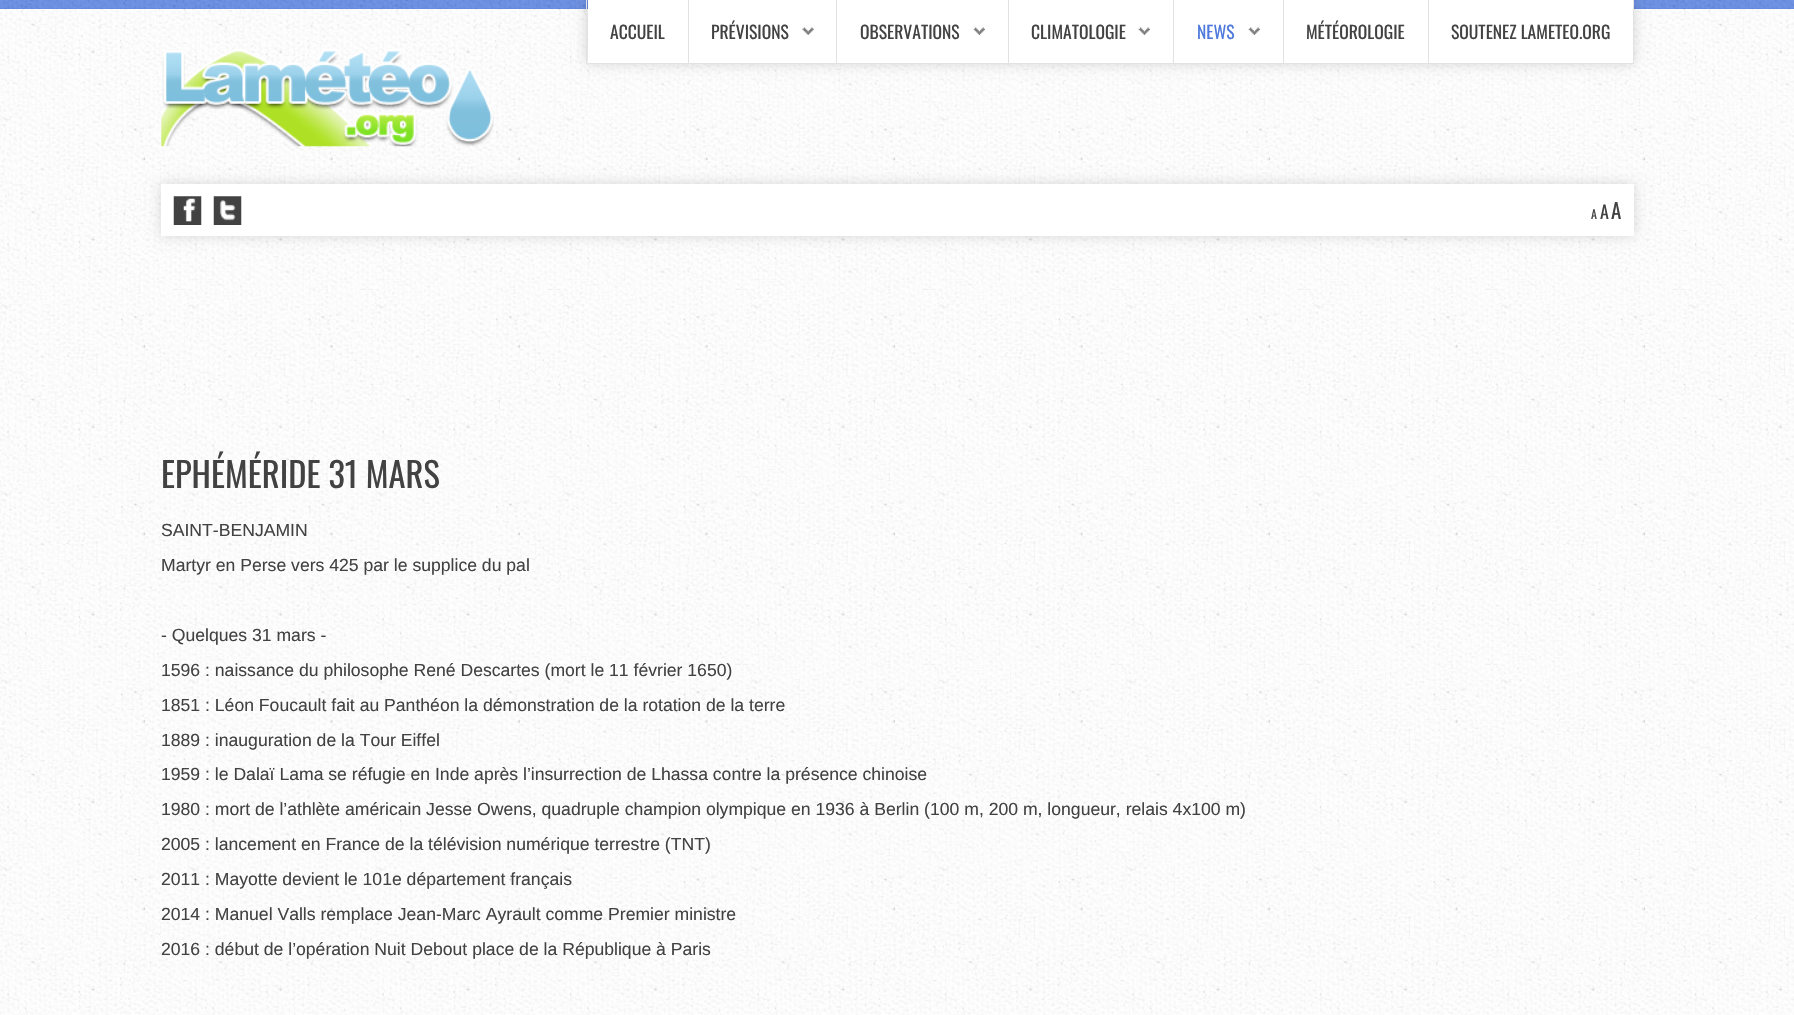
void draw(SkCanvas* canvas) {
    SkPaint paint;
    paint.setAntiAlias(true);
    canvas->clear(0xFFFFFFFF);
    canvas->drawImageRect(SkImages::DeferredFromEncodedData(SkData::MakeFromFileName("img1.png")), SkRect::MakeXYWH(0, 9, 1794, 1006), SkSamplingOptions());
    paint.setColor(0xFF4F7ADD);
    canvas->drawRect(SkRect::MakeXYWH(0, 0, 1794, 9), paint);
    canvas->drawImageRect(SkImages::DeferredFromEncodedData(SkData::MakeFromFileName("img2.png")), SkRect::MakeXYWH(0, 0, 1794, 9), SkSamplingOptions());
    paint.setColor(0x26000000);
    paint.setMaskFilter(SkMaskFilter::MakeBlur(kNormal_SkBlurStyle, 6));
    canvas->drawRect(SkRect::MakeXYWH(586, -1, 1048, 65), paint);
    paint.setMaskFilter(nullptr);
    paint.setColor(0xFFE3E2E2);
    canvas->drawRect(SkRect::MakeXYWH(586, 0, 1, 64), paint);
    paint.setColor(0xFFFFFFFF);
    canvas->drawRect(SkRect::MakeXYWH(588, 0, 100, 63), paint);
    paint.setColor(0xFFE3E2E2);
    canvas->drawRect(SkRect::MakeXYWH(688, 0, 1, 64), paint);
    canvas->drawRect(SkRect::MakeXYWH(588, 63, 101, 1), paint);
    SkFont font1(fontMgr->matchFamilyStyle("Oswald", SkFontStyle::Normal()), 17.6f);
    font1.setSubpixel(true);
    paint.setColor(0xFF424242);
    canvas->drawString("ACCUEIL", 610, 39, font1, paint);
    paint.setColor(0xFFFFFFFF);
    canvas->drawRect(SkRect::MakeXYWH(689, 0, 319, 63), paint);
    paint.setColor(0xFFE3E2E2);
    canvas->drawRect(SkRect::MakeXYWH(836, 0, 1, 64), paint);
    canvas->drawRect(SkRect::MakeXYWH(689, 63, 149, 1), paint);
    canvas->drawImageRect(SkImages::DeferredFromEncodedData(SkData::MakeFromFileName("img3.png")), SkRect::MakeXYWH(802, 27, 12, 8), SkSamplingOptions());
    paint.setColor(0xFF424242);
    canvas->drawString("PRÉVISIONS", 711, 39, font1, paint);
    paint.setColor(0xFFE3E2E2);
    canvas->drawRect(SkRect::MakeXYWH(1008, 0, 1, 64), paint);
    canvas->drawRect(SkRect::MakeXYWH(838, 63, 171, 1), paint);
    canvas->drawImageRect(SkImages::DeferredFromEncodedData(SkData::MakeFromFileName("img4.png")), SkRect::MakeXYWH(973, 27, 12, 8), SkSamplingOptions());
    paint.setColor(0xFF424242);
    canvas->drawString("OBSERVATIONS", 860, 39, font1, paint);
    paint.setColor(0xFFFFFFFF);
    canvas->drawRect(SkRect::MakeXYWH(1009, 0, 164, 63), paint);
    paint.setColor(0xFFE3E2E2);
    canvas->drawRect(SkRect::MakeXYWH(1173, 0, 1, 64), paint);
    canvas->drawRect(SkRect::MakeXYWH(1009, 63, 165, 1), paint);
    canvas->drawImageRect(SkImages::DeferredFromEncodedData(SkData::MakeFromFileName("img4.png")), SkRect::MakeXYWH(1138, 27, 12, 8), SkSamplingOptions());
    paint.setColor(0xFF424242);
    canvas->drawString("CLIMATOLOGIE", 1031, 39, font1, paint);
    paint.setColor(0xFFFFFFFF);
    canvas->drawRect(SkRect::MakeXYWH(1174, 0, 109, 63), paint);
    paint.setColor(0xFFE3E2E2);
    canvas->drawRect(SkRect::MakeXYWH(1283, 0, 1, 64), paint);
    canvas->drawRect(SkRect::MakeXYWH(1174, 63, 110, 1), paint);
    canvas->drawImageRect(SkImages::DeferredFromEncodedData(SkData::MakeFromFileName("img5.png")), SkRect::MakeXYWH(1248, 27, 12, 8), SkSamplingOptions());
    paint.setColor(0xFF4F7ADD);
    canvas->drawString("NEWS", 1197, 39, font1, paint);
    paint.setColor(0xFFFFFFFF);
    canvas->drawRect(SkRect::MakeXYWH(1284, 0, 144, 63), paint);
    paint.setColor(0xFFE3E2E2);
    canvas->drawRect(SkRect::MakeXYWH(1428, 0, 1, 64), paint);
    canvas->drawRect(SkRect::MakeXYWH(1284, 63, 145, 1), paint);
    paint.setColor(0xFF424242);
    canvas->drawString("MÉTÉOROLOGIE", 1306, 39, font1, paint);
    paint.setColor(0xFFFFFFFF);
    canvas->drawRect(SkRect::MakeXYWH(1429, 0, 204, 63), paint);
    paint.setColor(0xFFE3E2E2);
    canvas->drawRect(SkRect::MakeXYWH(1633, 0, 1, 64), paint);
    canvas->drawRect(SkRect::MakeXYWH(1429, 63, 205, 1), paint);
    paint.setColor(0xFF424242);
    canvas->drawString("SOUTENEZ LAMETEO.ORG", 1451, 39, font1, paint);
    canvas->drawImageRect(SkImages::DeferredFromEncodedData(SkData::MakeFromFileName("img6.png")), SkRect::MakeXYWH(161, 49, 333, 98), SkSamplingOptions());
    paint.setColor(0x26000000);
    paint.setMaskFilter(SkMaskFilter::MakeBlur(kNormal_SkBlurStyle, 6));
    canvas->drawRect(SkRect::MakeXYWH(161, 184, 1473, 52), paint);
    paint.setMaskFilter(nullptr);
    paint.setColor(0xFFFFFFFF);
    canvas->drawRect(SkRect::MakeXYWH(161, 184, 1473, 52), paint);
    canvas->drawImageRect(SkImages::DeferredFromEncodedData(SkData::MakeFromFileName("img7.png")), SkRect::MakeXYWH(173, 196, 29, 29), SkSamplingOptions());
    canvas->drawImageRect(SkImages::DeferredFromEncodedData(SkData::MakeFromFileName("img8.png")), SkRect::MakeXYWH(213, 196, 29, 29), SkSamplingOptions());
    SkFont font2(fontMgr->matchFamilyStyle("Oswald", SkFontStyle::Normal()), 12);
    font2.setSubpixel(true);
    paint.setColor(0xFF424242);
    canvas->drawString("A", 1591, 219, font2, paint);
    SkFont font3(fontMgr->matchFamilyStyle("Oswald", SkFontStyle::Normal()), 18);
    font3.setSubpixel(true);
    canvas->drawString("A", 1600, 219, font3, paint);
    SkFont font4(fontMgr->matchFamilyStyle("Oswald", SkFontStyle::Normal()), 21);
    font4.setSubpixel(true);
    canvas->drawString("A", 1611, 219, font4, paint);
    SkFont font5(fontMgr->matchFamilyStyle("Oswald", SkFontStyle::Normal()), 34.5f);
    font5.setSubpixel(true);
    canvas->drawString("EPHÉMÉRIDE 31 MARS", 161, 488, font5, paint);
    SkFont font6(fontMgr->matchFamilyStyle("Liberation Sans", SkFontStyle::Normal()), 17.6f);
    font6.setSubpixel(true);
    canvas->drawString("SAINT-BENJAMIN", 161, 536, font6, paint);
    canvas->drawString("Martyr en Perse vers 425 par le supplice du pal", 161, 571, font6, paint);
    canvas->drawString("- Quelques 31 mars -", 161, 641, font6, paint);
    canvas->drawString("1596 : naissance du philosophe René Descartes (mort le 11 février 1650)", 161, 676, font6, paint);
    canvas->drawString("1851 : Léon Foucault fait au Panthéon la démonstration de la rotation de la terre", 161, 711, font6, paint);
    canvas->drawString("1889 : inauguration de la Tour Eiffel", 161, 746, font6, paint);
    canvas->drawString("1959 : le Dalaï Lama se réfugie en Inde après l’insurrection de Lhassa contre la présence chinoise", 161, 780, font6, paint);
    canvas->drawString("1980 : mort de l’athlète américain Jesse Owens, quadruple champion olympique en 1936 à Berlin (100 m, 200 m, longueur, relais 4x100 m)", 161, 815, font6, paint);
    canvas->drawString("2005 : lancement en France de la télévision numérique terrestre (TNT)", 161, 850, font6, paint);
    canvas->drawString("2011 : Mayotte devient le 101e département français", 161, 885, font6, paint);
    canvas->drawString("2014 : Manuel Valls remplace Jean-Marc Ayrault comme Premier ministre", 161, 920, font6, paint);
    canvas->drawString("2016 : début de l’opération Nuit Debout place de la République à Paris", 161, 955, font6, paint);
}
